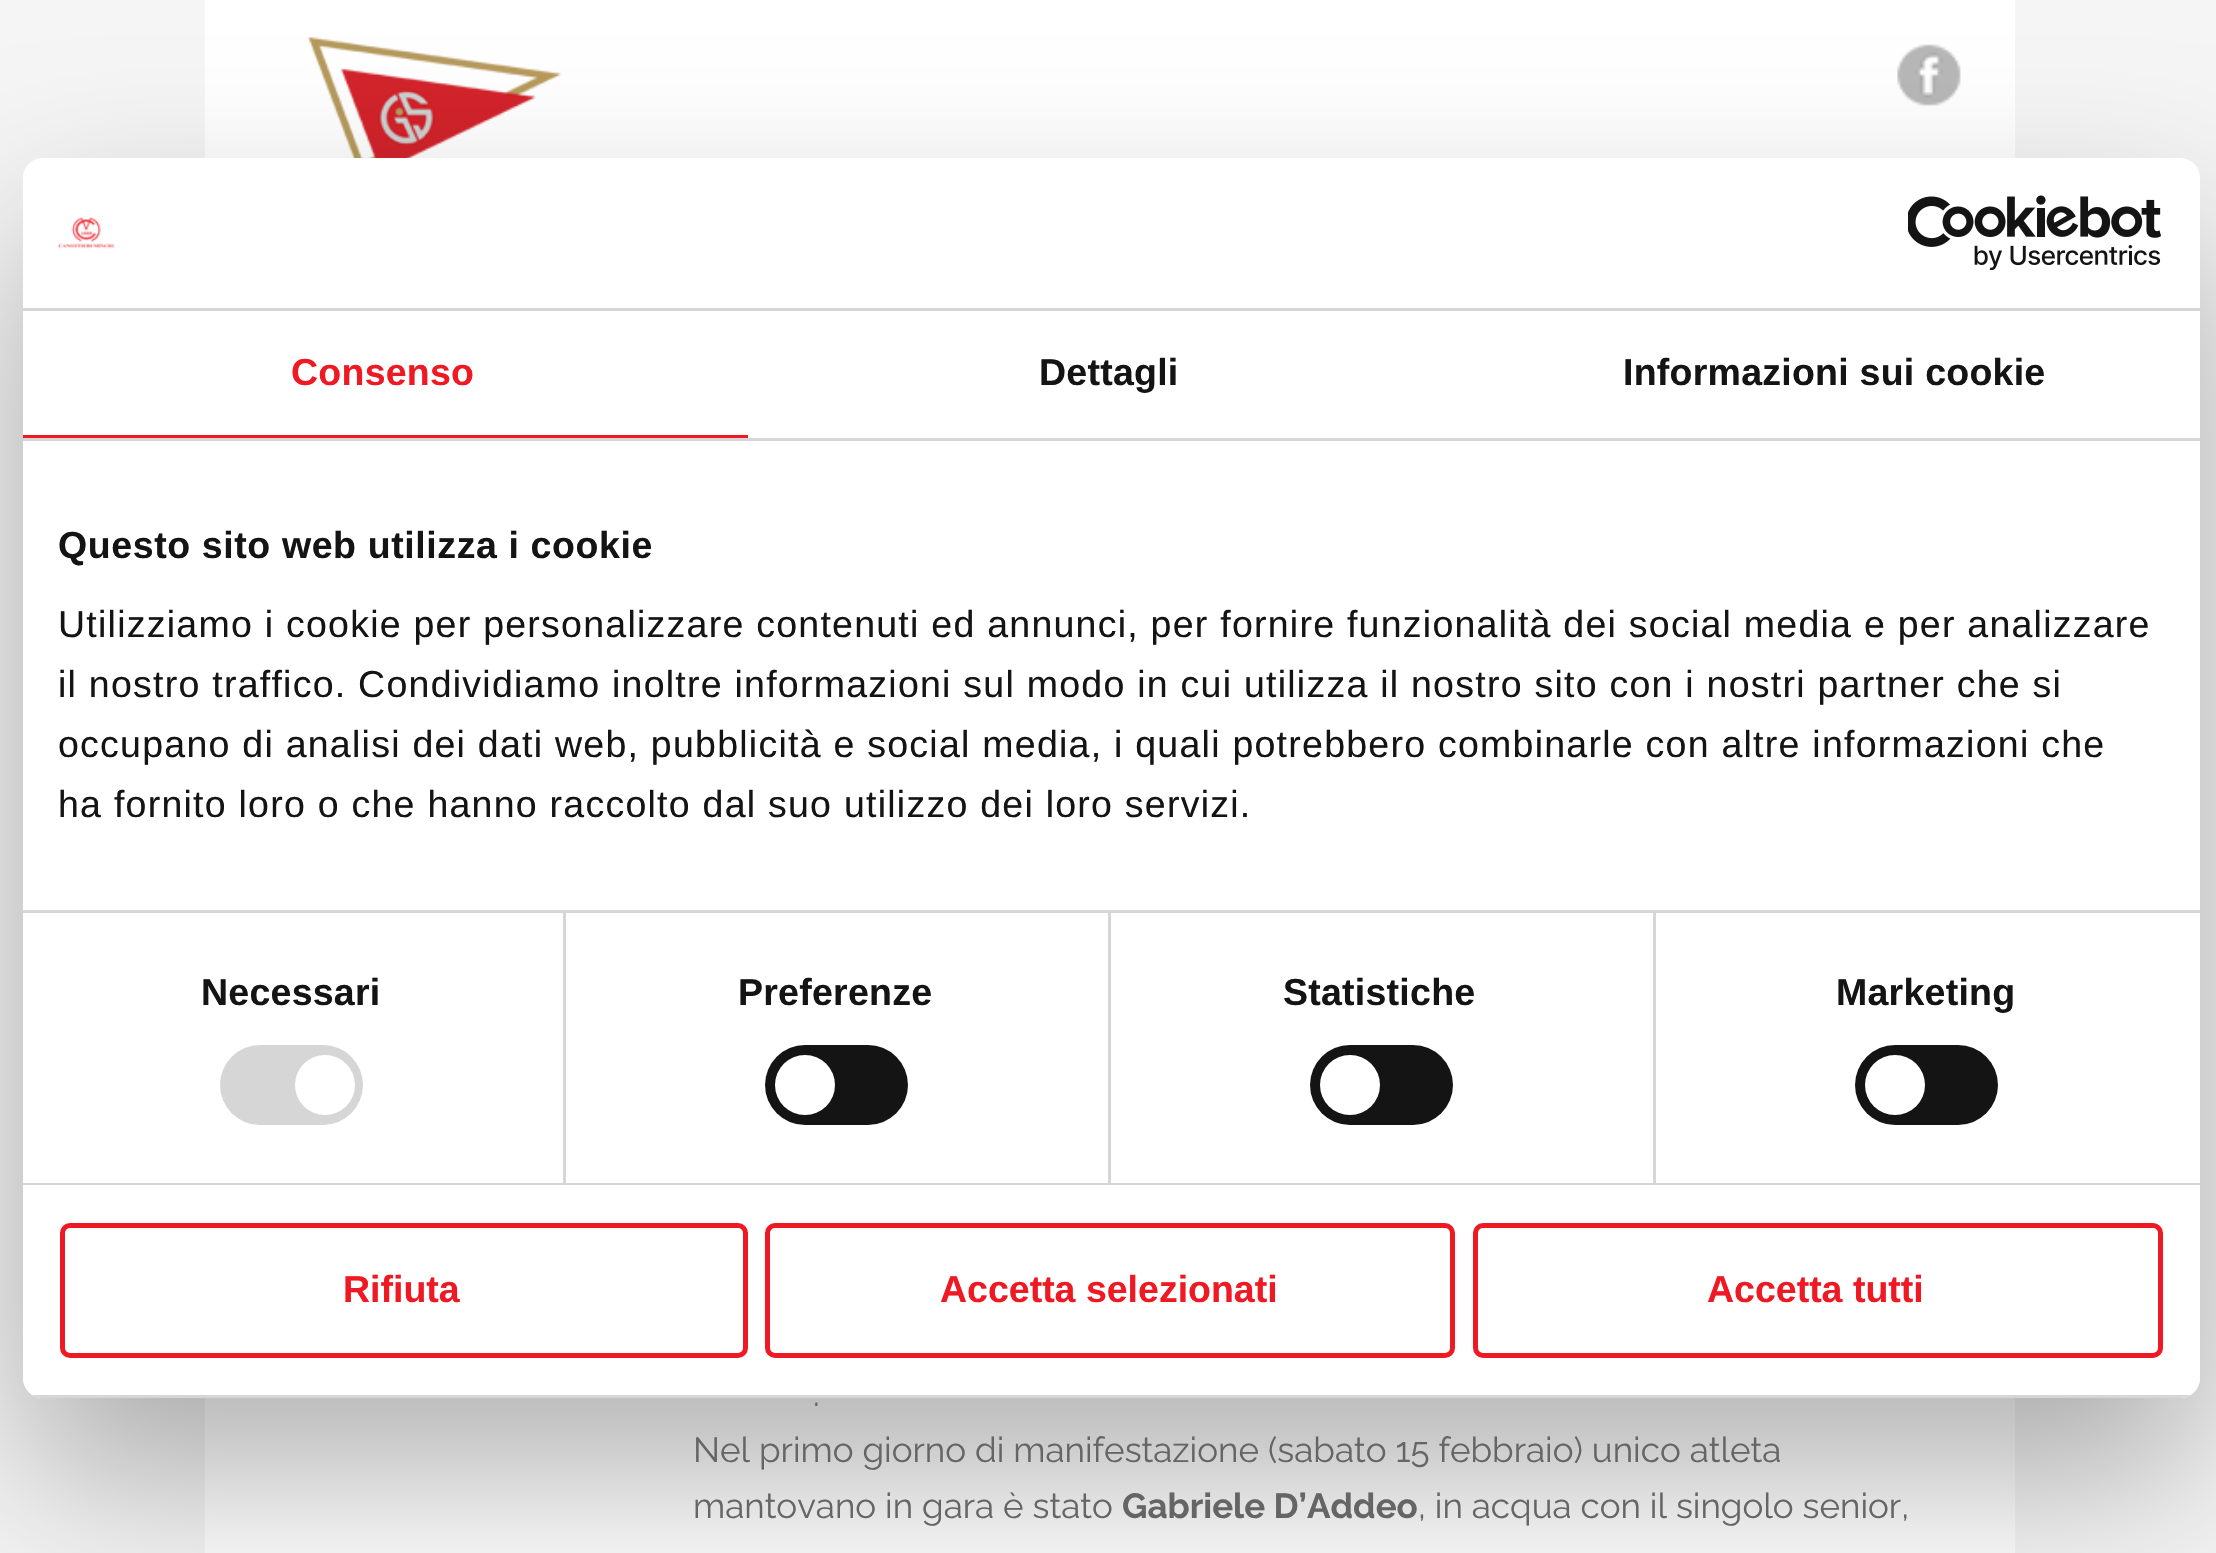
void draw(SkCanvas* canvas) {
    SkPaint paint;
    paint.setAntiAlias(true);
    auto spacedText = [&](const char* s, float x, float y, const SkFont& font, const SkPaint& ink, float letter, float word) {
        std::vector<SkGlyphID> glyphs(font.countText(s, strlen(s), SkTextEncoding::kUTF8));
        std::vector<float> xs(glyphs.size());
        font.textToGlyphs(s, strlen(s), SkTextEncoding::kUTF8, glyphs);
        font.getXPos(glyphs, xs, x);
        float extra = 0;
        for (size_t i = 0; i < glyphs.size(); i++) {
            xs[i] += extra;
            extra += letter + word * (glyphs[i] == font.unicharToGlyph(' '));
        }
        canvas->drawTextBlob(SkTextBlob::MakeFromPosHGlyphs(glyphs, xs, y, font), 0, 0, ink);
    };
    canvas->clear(0xFFF5F5F5);
    paint.setColor(0xFFFFFFFF);
    canvas->drawRect(SkRect::MakeXYWH(205, 0, 1810, 1553), paint);
    canvas->drawImageRect(SkImages::DeferredFromEncodedData(SkData::MakeFromFileName("img3.png")), SkRect::MakeXYWH(307, 37, 255, 121), SkSamplingOptions());
    canvas->drawImageRect(SkImages::DeferredFromEncodedData(SkData::MakeFromFileName("img4.png")), SkRect::MakeXYWH(1897, 44, 64, 62), SkSamplingOptions());
    canvas->save();
    canvas->clipPath(SkPathBuilder(SkPathFillType::kEvenOdd).moveTo(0, 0).lineTo(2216, 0).lineTo(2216, 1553).lineTo(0, 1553).close().moveTo(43, 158).lineTo(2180, 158).cubicTo(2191, 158, 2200, 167, 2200, 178).lineTo(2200, 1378).cubicTo(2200, 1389, 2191, 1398, 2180, 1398).lineTo(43, 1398).cubicTo(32, 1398, 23, 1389, 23, 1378).lineTo(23, 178).cubicTo(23, 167, 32, 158, 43, 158).close().detach(), true);
    paint.setColor(0x4D000000);
    paint.setMaskFilter(SkMaskFilter::MakeBlur(kNormal_SkBlurStyle, 85));
    canvas->drawRoundRect(SkRect::MakeXYWH(23, 238, 2177, 1240), 20, 20, paint);
    paint.setMaskFilter(nullptr);
    canvas->restore();
    paint.setColor(0xFFFFFFFF);
    canvas->drawRoundRect(SkRect::MakeXYWH(23, 158, 2177, 1240), 20, 20, paint);
    paint.setColor(0xFFD6D6D6);
    canvas->drawRect(SkRect::MakeXYWH(23, 308, 2177, 3), paint);
    canvas->drawImageRect(SkImages::DeferredFromEncodedData(SkData::MakeFromFileName("img1.png")), SkRect::MakeXYWH(58, 217, 56, 32), SkSamplingOptions());
    canvas->drawImageRect(SkImages::DeferredFromEncodedData(SkData::MakeFromFileName("img2.png")), SkRect::MakeXYWH(1908, 195, 253, 75), SkSamplingOptions());
    canvas->drawRect(SkRect::MakeXYWH(23, 438, 2177, 3), paint);
    paint.setColor(0xFFEF1923);
    canvas->drawRect(SkRect::MakeXYWH(23, 435, 725, 3), paint);
    SkFont font1(fontMgr->matchFamilyStyle("Liberation Sans", SkFontStyle::Bold()), 37.5f);
    font1.setSubpixel(true);
    spacedText("Consenso", 291, 385, font1, paint, 0.25f, 0);
    paint.setColor(0xFF141414);
    spacedText("Dettagli", 1039, 385, font1, paint, 0.25f, 0);
    spacedText("Informazioni sui cookie", 1623, 385, font1, paint, 0.25f, 0);
    paint.setColor(0xFFD6D6D6);
    canvas->drawRect(SkRect::MakeXYWH(23, 910, 2177, 3), paint);
    paint.setColor(0xFF141414);
    spacedText("Questo sito web utilizza i cookie", 58, 558, font1, paint, 0.6f, 0);
    SkFont font2(fontMgr->matchFamilyStyle("Liberation Sans", SkFontStyle::Normal()), 37.5f);
    font2.setSubpixel(true);
    spacedText("Utilizziamo i cookie per personalizzare contenuti ed annunci, per fornire funzionalità dei social media e per analizzare", 58, 637, font2, paint, 1.25f, 0);
    spacedText("il nostro traffico. Condividiamo inoltre informazioni sul modo in cui utilizza il nostro sito con i nostri partner che si", 58, 697, font2, paint, 1.25f, 0);
    spacedText("occupano di analisi dei dati web, pubblicità e social media, i quali potrebbero combinarle con altre informazioni che", 58, 757, font2, paint, 1.25f, 0);
    spacedText("ha fornito loro o che hanno raccolto dal suo utilizzo dei loro servizi.", 58, 817, font2, paint, 1.25f, 0);
    paint.setColor(0xFFD6D6D6);
    canvas->drawRect(SkRect::MakeXYWH(23, 1183, 2177, 2), paint);
    canvas->drawRect(SkRect::MakeXYWH(563, 913, 3, 270), paint);
    paint.setColor(0xFF141414);
    spacedText("Necessari", 201, 1005, font1, paint, 0.25f, 0);
    paint.setColor(0xFFD6D6D6);
    canvas->drawRoundRect(SkRect::MakeXYWH(220, 1045, 143, 80), 40, 40, paint);
    paint.setColor(0xFFFFFFFF);
    canvas->drawCircle(325, 1085, 30, paint);
    paint.setColor(0xFFD6D6D6);
    canvas->drawRect(SkRect::MakeXYWH(1108, 913, 3, 270), paint);
    paint.setColor(0xFF141414);
    spacedText("Preferenze", 738, 1005, font1, paint, 0.25f, 0);
    canvas->drawRoundRect(SkRect::MakeXYWH(765, 1045, 143, 80), 40, 40, paint);
    paint.setColor(0xFFFFFFFF);
    canvas->drawCircle(805, 1085, 30, paint);
    paint.setColor(0xFFD6D6D6);
    canvas->drawRect(SkRect::MakeXYWH(1653, 913, 3, 270), paint);
    paint.setColor(0xFF141414);
    spacedText("Statistiche", 1283, 1005, font1, paint, 0.25f, 0);
    canvas->drawRoundRect(SkRect::MakeXYWH(1310, 1045, 143, 80), 40, 40, paint);
    paint.setColor(0xFFFFFFFF);
    canvas->drawCircle(1350, 1085, 30, paint);
    paint.setColor(0xFF141414);
    spacedText("Marketing", 1836, 1005, font1, paint, 0.25f, 0);
    canvas->drawRoundRect(SkRect::MakeXYWH(1855, 1045, 143, 80), 40, 40, paint);
    paint.setColor(0xFFFFFFFF);
    canvas->drawCircle(1895, 1085, 30, paint);
    canvas->save();
    canvas->clipPath(SkPathBuilder().moveTo(43, 158).lineTo(2180, 158).cubicTo(2191, 158, 2200, 167, 2200, 178).lineTo(2200, 1378).cubicTo(2200, 1389, 2191, 1398, 2180, 1398).lineTo(43, 1398).cubicTo(32, 1398, 23, 1389, 23, 1378).lineTo(23, 178).cubicTo(23, 167, 32, 158, 43, 158).close().detach(), true);
    paint.setColor(0xFFD6D6D6);
    canvas->drawRect(SkRect::MakeXYWH(32, 1395, 2159, 3), paint);
    canvas->restore();
    paint.setStyle(SkPaint::kStroke_Style);
    paint.setStrokeWidth(5);
    paint.setColor(0xFFEF1923);
    canvas->drawRoundRect(SkRect::MakeXYWH(62.5f, 1225.5f, 683, 130), 7.5f, 7.5f, paint);
    paint.setStyle(SkPaint::kFill_Style);
    canvas->drawString("Rifiuta", 343, 1302, font1, paint);
    paint.setStyle(SkPaint::kStroke_Style);
    canvas->drawRoundRect(SkRect::MakeXYWH(767.5f, 1225.5f, 685, 130), 7.5f, 7.5f, paint);
    paint.setStyle(SkPaint::kFill_Style);
    canvas->drawString("Accetta selezionati", 940, 1302, font1, paint);
    paint.setStyle(SkPaint::kStroke_Style);
    canvas->drawRoundRect(SkRect::MakeXYWH(1475.5f, 1225.5f, 685, 130), 7.5f, 7.5f, paint);
    paint.setStyle(SkPaint::kFill_Style);
    canvas->drawString("Accetta tutti", 1707, 1302, font1, paint);
    SkFont font3(fontMgr->matchFamilyStyle("Raleway", SkFontStyle::Normal()), 35);
    font3.setSubpixel(true);
    paint.setColor(0xFF656565);
    canvas->drawString(".", 813, 1406, font3, paint);
    canvas->drawString("Nel primo giorno di manifestazione (sabato 15 febbraio) unico atleta", 693, 1462, font3, paint);
    canvas->drawString("mantovano in gara è stato", 693, 1518, font3, paint);
    SkFont font4(fontMgr->matchFamilyStyle("Raleway", SkFontStyle::Bold()), 35);
    font4.setSubpixel(true);
    canvas->drawString("Gabriele D’Addeo", 1122, 1518, font4, paint);
    canvas->drawString(", in acqua con il singolo senior,", 1418, 1518, font3, paint);
}
